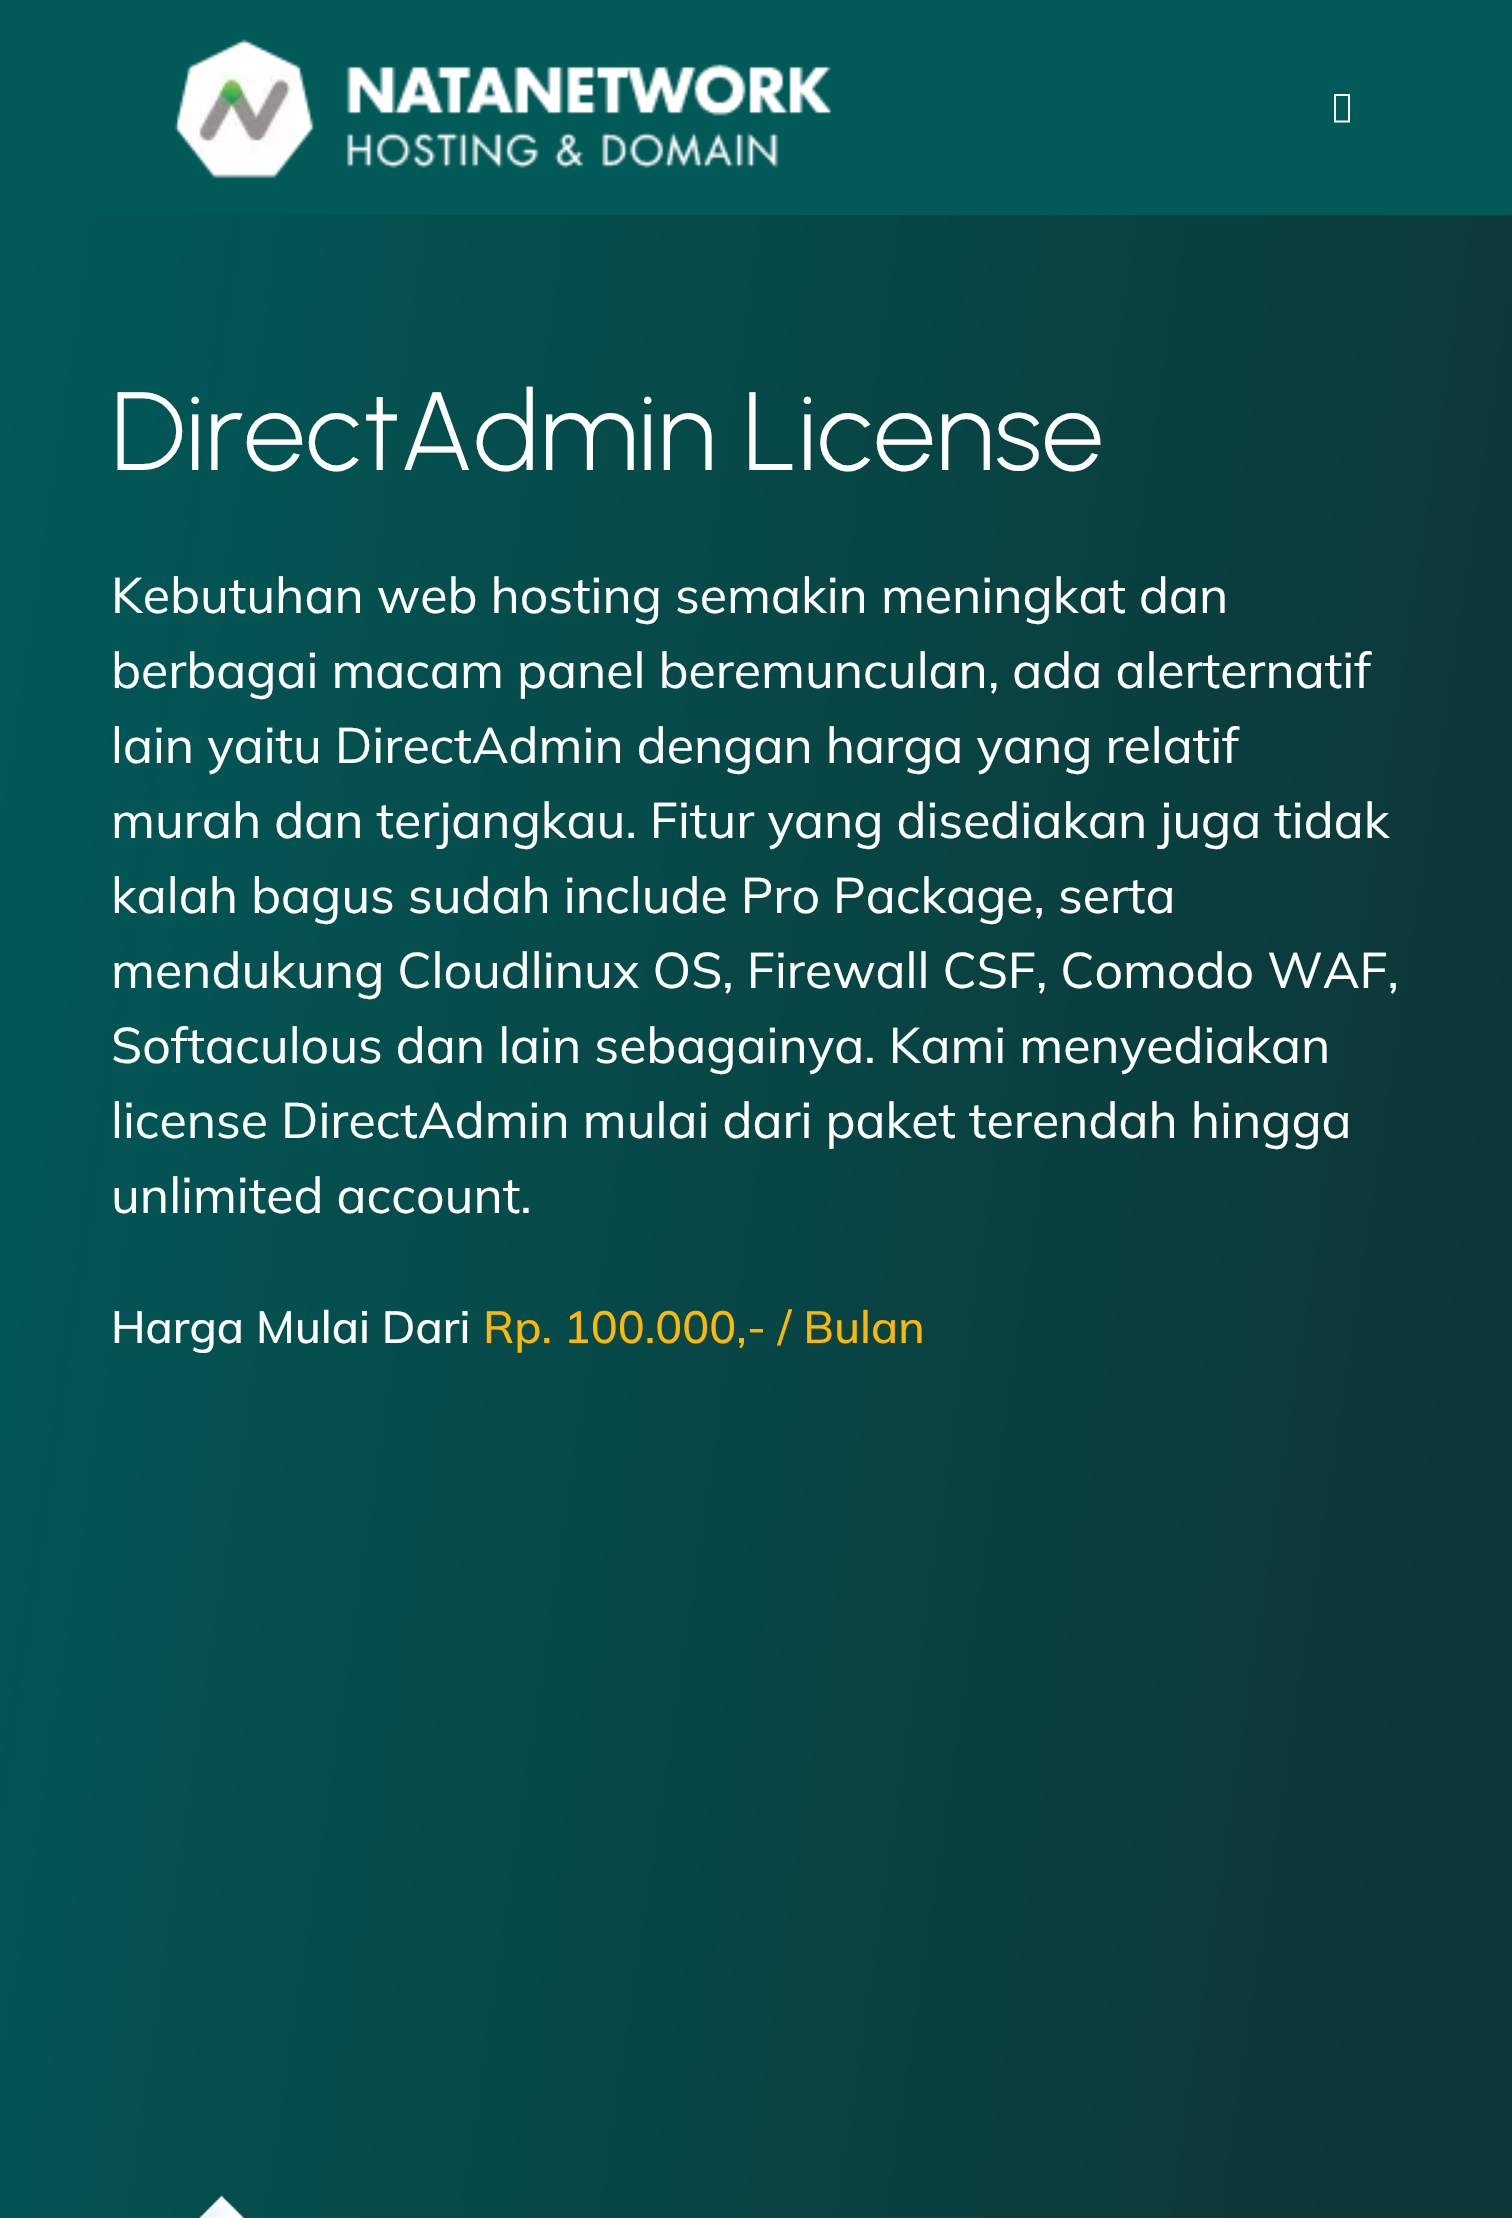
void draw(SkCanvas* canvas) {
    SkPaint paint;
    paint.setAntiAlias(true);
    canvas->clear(0xFF015958);
    canvas->drawImageRect(SkImages::DeferredFromEncodedData(SkData::MakeFromFileName("img1.png")), SkRect::MakeXYWH(174, 39, 659, 140), SkSamplingOptions());
    paint.setColor(0xFFFFFFFF);
    canvas->drawPath(SkPathBuilder().moveTo(1334, 122.5f).lineTo(1334, 94).lineTo(1350, 94).lineTo(1350, 122.5f).close().moveTo(1336, 120.5f).lineTo(1348, 120.5f).lineTo(1348, 96).lineTo(1336, 96).close().detach(), paint);
    {
        const SkColor colors[] = {0xFF0C3736, 0xFF015958};
        const float stops[] = {0.16f, 0.99f};
        const SkPoint ends[] = {{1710, 1816}, {-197, 1529}};
        paint.setShader(SkGradientShader::MakeLinear(ends, colors, stops, 2, SkTileMode::kClamp));
        paint.setAlpha(255);
    }
    canvas->drawRect(SkRect::MakeXYWH(0, 215, 1512, 2003), paint);
    SkFont font1(fontMgr->matchFamilyStyle("Urbanist", SkFontStyle(300, SkFontStyle::kNormal_Width, SkFontStyle::kUpright_Slant)), 111);
    font1.setSubpixel(true);
    paint.setShader(nullptr);
    paint.setColor(0xFFFFFFFF);
    canvas->drawString("DirectAdmin License", 111, 470, font1, paint);
    SkFont font2(fontMgr->matchFamilyStyle("Mulish", SkFontStyle::Normal()), 50);
    font2.setSubpixel(true);
    canvas->drawString("Kebutuhan web hosting semakin meningkat dan", 111, 613, font2, paint);
    canvas->drawString("berbagai macam panel beremunculan, ada alerternatif", 111, 688, font2, paint);
    canvas->drawString("lain yaitu DirectAdmin dengan harga yang relatif", 111, 763, font2, paint);
    canvas->drawString("murah dan terjangkau. Fitur yang disediakan juga tidak", 111, 838, font2, paint);
    canvas->drawString("kalah bagus sudah include Pro Package, serta", 111, 913, font2, paint);
    canvas->drawString("mendukung Cloudlinux OS, Firewall CSF, Comodo WAF,", 111, 988, font2, paint);
    canvas->drawString("Softaculous dan lain sebagainya. Kami menyediakan", 111, 1063, font2, paint);
    canvas->drawString("license DirectAdmin mulai dari paket terendah hingga", 111, 1138, font2, paint);
    canvas->drawString("unlimited account.", 111, 1213, font2, paint);
    SkFont font3(fontMgr->matchFamilyStyle("Mulish", SkFontStyle(500, SkFontStyle::kNormal_Width, SkFontStyle::kUpright_Slant)), 45);
    font3.setSubpixel(true);
    canvas->drawString("Harga Mulai Dari", 111, 1343, font3, paint);
    paint.setColor(0xFFFFB800);
    canvas->drawString("Rp. 100.000,- / Bulan", 483, 1343, font3, paint);
    canvas->drawImageRect(SkImages::DeferredFromEncodedData(SkData::MakeFromFileName("img2.png")), SkRect::MakeXYWH(198, 2195, 47, 23), SkSamplingOptions());
}
